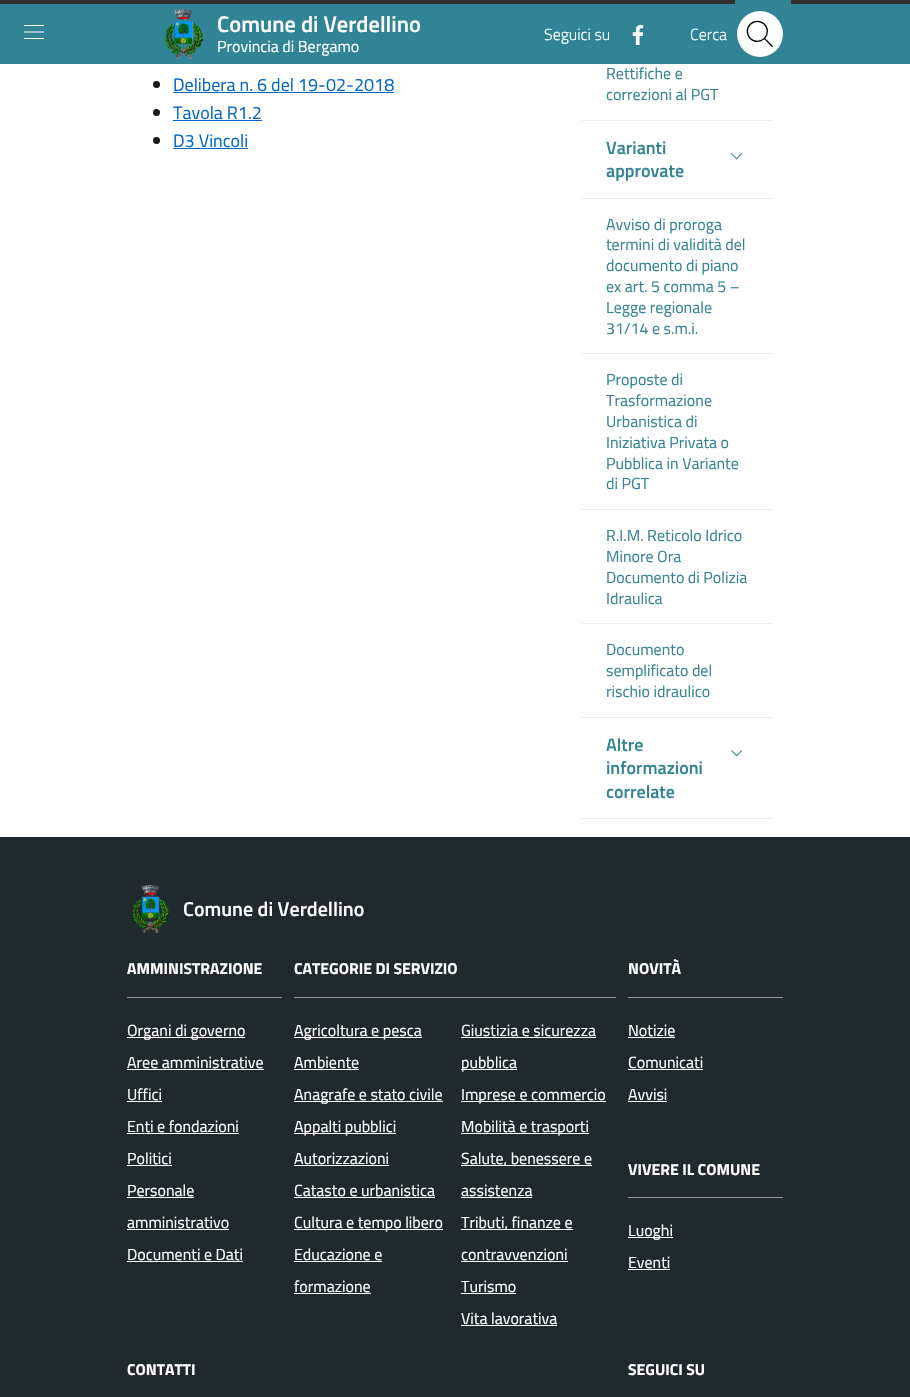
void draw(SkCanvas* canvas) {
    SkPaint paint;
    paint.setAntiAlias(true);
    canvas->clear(0xFFFFFFFF);
    paint.setColor(0xFF303030);
    canvas->drawRect(SkRect::MakeXYWH(0, 0, 910, 4), paint);
    paint.setColor(0xFF318396);
    canvas->drawRect(SkRect::MakeXYWH(735, 0, 56, 4), paint);
    canvas->drawRect(SkRect::MakeXYWH(0, 4, 910, 60), paint);
    canvas->drawImageRect(SkImages::DeferredFromEncodedData(SkData::MakeFromFileName("img1.png")), SkRect::MakeXYWH(24, 25, 20, 14), SkSamplingOptions());
    canvas->drawImageRect(SkImages::DeferredFromEncodedData(SkData::MakeFromFileName("img2.png")), SkRect::MakeXYWH(164, 9, 40, 50), SkSamplingOptions());
    SkFont font1(fontMgr->matchFamilyStyle("Titillium Web", SkFontStyle(600, SkFontStyle::kNormal_Width, SkFontStyle::kUpright_Slant)), 22.5f);
    font1.setSubpixel(true);
    paint.setColor(0xFFFFFFFF);
    canvas->drawString("Comune di Verdellino", 217, 32, font1, paint);
    SkFont font2(fontMgr->matchFamilyStyle("Titillium Web", SkFontStyle::Normal()), 16);
    font2.setSubpixel(true);
    canvas->drawString("Provincia di Bergamo", 217, 52, font2, paint);
    SkFont font3(fontMgr->matchFamilyStyle("Titillium Web", SkFontStyle(300, SkFontStyle::kNormal_Width, SkFontStyle::kUpright_Slant)), 16);
    font3.setSubpixel(true);
    canvas->drawString("Seguici su", 544, 40, font3, paint);
    canvas->drawImageRect(SkImages::DeferredFromEncodedData(SkData::MakeFromFileName("img3.png")), SkRect::MakeXYWH(632, 25, 12, 20), SkSamplingOptions());
    canvas->drawString("Cerca", 690, 40, font3, paint);
    canvas->drawCircle(760, 34, 23, paint);
    canvas->drawImageRect(SkImages::DeferredFromEncodedData(SkData::MakeFromFileName("img4.png")), SkRect::MakeXYWH(746, 20, 28, 28), SkSamplingOptions());
    paint.setColor(0xFF19191A);
    canvas->drawCircle(156.5f, 84.5f, 3.5f, paint);
    SkFont font4(fontMgr->matchFamilyStyle("Titillium Web", SkFontStyle::Normal()), 18);
    font4.setSubpixel(true);
    paint.setColor(0xFF0066CC);
    canvas->drawString("Delibera n. 6 del 19-02-2018", 173, 91, font4, paint);
    canvas->drawRect(SkRect::MakeXYWH(173, 92, 221, 1), paint);
    paint.setColor(0xFF19191A);
    canvas->drawCircle(156.5f, 112.5f, 3.5f, paint);
    paint.setColor(0xFF0066CC);
    canvas->drawString("Tavola R1.2", 173, 119, font4, paint);
    canvas->drawRect(SkRect::MakeXYWH(173, 120, 89, 1), paint);
    paint.setColor(0xFF19191A);
    canvas->drawCircle(156.5f, 140.5f, 3.5f, paint);
    paint.setColor(0xFF0066CC);
    canvas->drawString("D3 Vincoli", 173, 147, font4, paint);
    canvas->drawRect(SkRect::MakeXYWH(173, 148, 75, 1), paint);
    paint.setColor(0xFFECECEC);
    canvas->drawRect(SkRect::MakeXYWH(582, 120, 191, 1), paint);
    paint.setColor(0xFF318396);
    canvas->drawString("Rettifiche e", 606, 79, font2, paint);
    canvas->drawString("correzioni al PGT", 606, 100, font2, paint);
    paint.setColor(0xFFECECEC);
    canvas->drawRect(SkRect::MakeXYWH(582, 198, 191, 1), paint);
    SkFont font5(fontMgr->matchFamilyStyle("Titillium Web", SkFontStyle(600, SkFontStyle::kNormal_Width, SkFontStyle::kUpright_Slant)), 18);
    font5.setSubpixel(true);
    paint.setColor(0xFF318396);
    canvas->drawString("Varianti", 606, 154, font5, paint);
    canvas->drawString("approvate", 606, 177, font5, paint);
    canvas->drawImageRect(SkImages::DeferredFromEncodedData(SkData::MakeFromFileName("img5.png")), SkRect::MakeXYWH(731, 153, 12, 7), SkSamplingOptions());
    paint.setColor(0xFFECECEC);
    canvas->drawRect(SkRect::MakeXYWH(582, 353, 191, 1), paint);
    paint.setColor(0xFF318396);
    canvas->drawString("Avviso di proroga", 606, 230, font2, paint);
    canvas->drawString("termini di validità del", 606, 250, font2, paint);
    canvas->drawString("documento di piano", 606, 271, font2, paint);
    canvas->drawString("ex art. 5 comma 5 –", 606, 292, font2, paint);
    canvas->drawString("Legge regionale", 606, 313, font2, paint);
    canvas->drawString("31/14 e s.m.i.", 606, 334, font2, paint);
    paint.setColor(0xFFECECEC);
    canvas->drawRect(SkRect::MakeXYWH(582, 509, 191, 1), paint);
    paint.setColor(0xFF318396);
    canvas->drawString("Proposte di", 606, 385, font2, paint);
    canvas->drawString("Trasformazione", 606, 406, font2, paint);
    canvas->drawString("Urbanistica di", 606, 427, font2, paint);
    canvas->drawString("Iniziativa Privata o", 606, 448, font2, paint);
    canvas->drawString("Pubblica in Variante", 606, 469, font2, paint);
    canvas->drawString("di PGT", 606, 489, font2, paint);
    paint.setColor(0xFFECECEC);
    canvas->drawRect(SkRect::MakeXYWH(582, 623, 191, 1), paint);
    paint.setColor(0xFF318396);
    canvas->drawString("R.I.M. Reticolo Idrico", 606, 541, font2, paint);
    canvas->drawString("Minore Ora", 606, 562, font2, paint);
    canvas->drawString("Documento di Polizia", 606, 583, font2, paint);
    canvas->drawString("Idraulica", 606, 604, font2, paint);
    paint.setColor(0xFFECECEC);
    canvas->drawRect(SkRect::MakeXYWH(582, 717, 191, 1), paint);
    paint.setColor(0xFF318396);
    canvas->drawString("Documento", 606, 655, font2, paint);
    canvas->drawString("semplificato del", 606, 676, font2, paint);
    canvas->drawString("rischio idraulico", 606, 697, font2, paint);
    paint.setColor(0xFFECECEC);
    canvas->drawRect(SkRect::MakeXYWH(582, 818, 191, 1), paint);
    paint.setColor(0xFF318396);
    canvas->drawString("Altre", 606, 751, font5, paint);
    canvas->drawString("informazioni", 606, 774, font5, paint);
    canvas->drawString("correlate", 606, 798, font5, paint);
    canvas->drawImageRect(SkImages::DeferredFromEncodedData(SkData::MakeFromFileName("img5.png")), SkRect::MakeXYWH(731, 750, 12, 7), SkSamplingOptions());
    paint.setColor(0xFF202A2E);
    canvas->drawRect(SkRect::MakeXYWH(0, 837, 910, 560), paint);
    canvas->drawImageRect(SkImages::DeferredFromEncodedData(SkData::MakeFromFileName("img6.png")), SkRect::MakeXYWH(132, 885, 37, 48), SkSamplingOptions());
    SkFont font6(fontMgr->matchFamilyStyle("Titillium Web", SkFontStyle(600, SkFontStyle::kNormal_Width, SkFontStyle::kUpright_Slant)), 20);
    font6.setSubpixel(true);
    paint.setColor(0xFFFFFFFF);
    canvas->drawString("Comune di Verdellino", 183, 916, font6, paint);
    paint.setColor(0xFF909597);
    canvas->drawRect(SkRect::MakeXYWH(127, 997, 155, 1), paint);
    SkFont font7(fontMgr->matchFamilyStyle("Titillium Web", SkFontStyle::Bold()), 15.75f);
    font7.setSubpixel(true);
    paint.setColor(0xFFFFFFFF);
    canvas->drawString("AMMINISTRAZIONE", 127, 974, font7, paint);
    canvas->drawRect(SkRect::MakeXYWH(127, 1037, 118, 1), paint);
    canvas->drawString("Organi di governo", 127, 1036, font2, paint);
    canvas->drawString("Aree amministrative", 127, 1068, font2, paint);
    canvas->drawRect(SkRect::MakeXYWH(127, 1069, 137, 1), paint);
    canvas->drawString("Uffici", 127, 1100, font2, paint);
    canvas->drawRect(SkRect::MakeXYWH(127, 1101, 35, 1), paint);
    canvas->drawString("Enti e fondazioni", 127, 1132, font2, paint);
    canvas->drawRect(SkRect::MakeXYWH(127, 1133, 112, 1), paint);
    canvas->drawString("Politici", 127, 1164, font2, paint);
    canvas->drawRect(SkRect::MakeXYWH(127, 1165, 45, 1), paint);
    canvas->drawString("Personale", 127, 1196, font2, paint);
    canvas->drawRect(SkRect::MakeXYWH(127, 1197, 67, 1), paint);
    canvas->drawString("amministrativo", 127, 1228, font2, paint);
    canvas->drawRect(SkRect::MakeXYWH(127, 1229, 102, 1), paint);
    canvas->drawString("Documenti e Dati", 127, 1260, font2, paint);
    canvas->drawRect(SkRect::MakeXYWH(127, 1261, 116, 1), paint);
    paint.setColor(0xFF909597);
    canvas->drawRect(SkRect::MakeXYWH(294, 997, 322, 1), paint);
    paint.setColor(0xFFFFFFFF);
    canvas->drawString("CATEGORIE DI SERVIZIO", 294, 974, font7, paint);
    canvas->drawRect(SkRect::MakeXYWH(294, 1037, 128, 1), paint);
    canvas->drawString("Agricoltura e pesca", 294, 1036, font2, paint);
    canvas->drawString("Ambiente", 294, 1068, font2, paint);
    canvas->drawRect(SkRect::MakeXYWH(294, 1069, 65, 1), paint);
    canvas->drawRect(SkRect::MakeXYWH(294, 1101, 149, 1), paint);
    canvas->drawString("Anagrafe e stato civile", 294, 1100, font2, paint);
    canvas->drawRect(SkRect::MakeXYWH(294, 1133, 102, 1), paint);
    canvas->drawString("Appalti pubblici", 294, 1132, font2, paint);
    canvas->drawString("Autorizzazioni", 294, 1164, font2, paint);
    canvas->drawRect(SkRect::MakeXYWH(294, 1165, 95, 1), paint);
    canvas->drawString("Catasto e urbanistica", 294, 1196, font2, paint);
    canvas->drawRect(SkRect::MakeXYWH(294, 1197, 141, 1), paint);
    canvas->drawRect(SkRect::MakeXYWH(294, 1229, 149, 1), paint);
    canvas->drawString("Cultura e tempo libero", 294, 1228, font2, paint);
    canvas->drawString("Educazione e", 294, 1260, font2, paint);
    canvas->drawRect(SkRect::MakeXYWH(294, 1261, 88, 1), paint);
    canvas->drawString("formazione", 294, 1292, font2, paint);
    canvas->drawRect(SkRect::MakeXYWH(294, 1293, 77, 1), paint);
    canvas->drawString("Giustizia e sicurezza", 461, 1036, font2, paint);
    canvas->drawRect(SkRect::MakeXYWH(461, 1037, 135, 1), paint);
    canvas->drawRect(SkRect::MakeXYWH(461, 1069, 56, 1), paint);
    canvas->drawString("pubblica", 461, 1068, font2, paint);
    canvas->drawRect(SkRect::MakeXYWH(461, 1101, 145, 1), paint);
    canvas->drawString("Imprese e commercio", 461, 1100, font2, paint);
    canvas->drawRect(SkRect::MakeXYWH(461, 1133, 128, 1), paint);
    canvas->drawString("Mobilità e trasporti", 461, 1132, font2, paint);
    canvas->drawRect(SkRect::MakeXYWH(461, 1165, 131, 1), paint);
    canvas->drawString("Salute, benessere e", 461, 1164, font2, paint);
    canvas->drawString("assistenza", 461, 1196, font2, paint);
    canvas->drawRect(SkRect::MakeXYWH(461, 1197, 71, 1), paint);
    canvas->drawRect(SkRect::MakeXYWH(461, 1229, 112, 1), paint);
    canvas->drawString("Tributi, finanze e", 461, 1228, font2, paint);
    canvas->drawString("contravvenzioni", 461, 1260, font2, paint);
    canvas->drawRect(SkRect::MakeXYWH(461, 1261, 107, 1), paint);
    canvas->drawString("Turismo", 461, 1292, font2, paint);
    canvas->drawRect(SkRect::MakeXYWH(461, 1293, 55, 1), paint);
    canvas->drawString("Vita lavorativa", 461, 1324, font2, paint);
    canvas->drawRect(SkRect::MakeXYWH(461, 1325, 96, 1), paint);
    paint.setColor(0xFF909597);
    canvas->drawRect(SkRect::MakeXYWH(628, 997, 155, 1), paint);
    paint.setColor(0xFFFFFFFF);
    canvas->drawString("NOVITÀ", 628, 974, font7, paint);
    canvas->drawString("Notizie", 628, 1036, font2, paint);
    canvas->drawRect(SkRect::MakeXYWH(628, 1037, 47, 1), paint);
    canvas->drawString("Comunicati", 628, 1068, font2, paint);
    canvas->drawRect(SkRect::MakeXYWH(628, 1069, 75, 1), paint);
    canvas->drawString("Avvisi", 628, 1100, font2, paint);
    canvas->drawRect(SkRect::MakeXYWH(628, 1101, 39, 1), paint);
    paint.setColor(0xFF909597);
    canvas->drawRect(SkRect::MakeXYWH(628, 1197, 155, 1), paint);
    paint.setColor(0xFFFFFFFF);
    canvas->drawString("VIVERE IL COMUNE", 628, 1175, font7, paint);
    canvas->drawRect(SkRect::MakeXYWH(628, 1237, 45, 1), paint);
    canvas->drawString("Luoghi", 628, 1236, font2, paint);
    canvas->drawString("Eventi", 628, 1268, font2, paint);
    canvas->drawRect(SkRect::MakeXYWH(628, 1269, 42, 1), paint);
    canvas->drawString("CONTATTI", 127, 1375, font7, paint);
    canvas->drawString("SEGUICI SU", 628, 1375, font7, paint);
}
